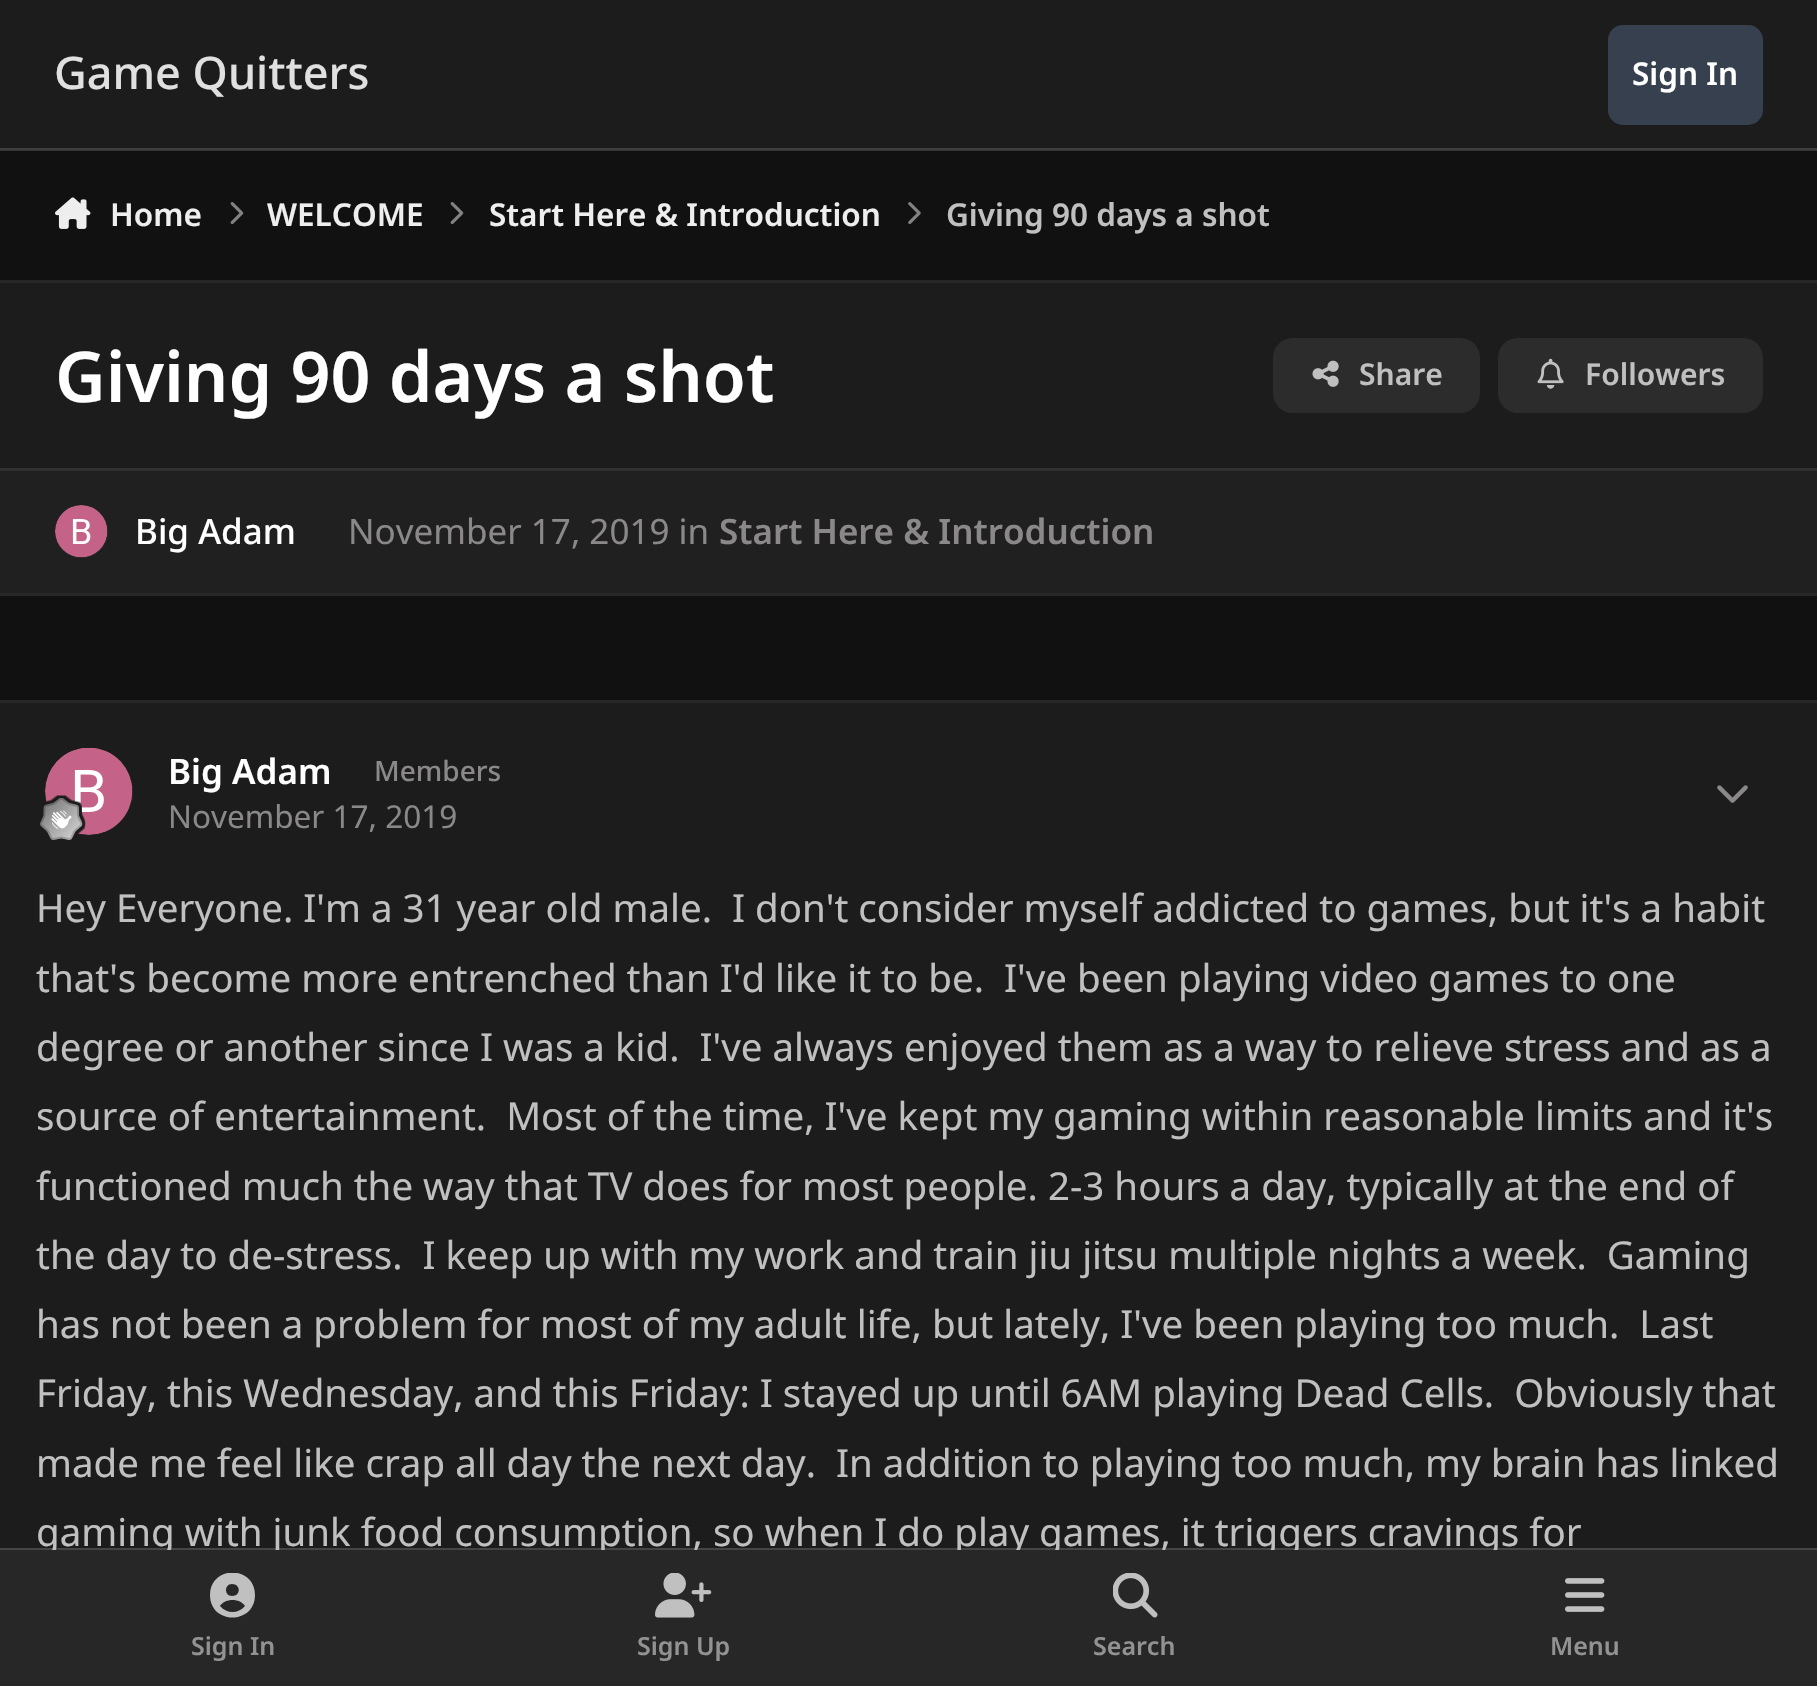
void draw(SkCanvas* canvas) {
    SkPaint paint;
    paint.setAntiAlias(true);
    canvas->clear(0xFF111111);
    paint.setColor(0xFF353535);
    canvas->drawRect(SkRect::MakeXYWH(0, 150, 1817, 1), paint);
    paint.setColor(0xFF1C1C1C);
    canvas->drawRect(SkRect::MakeXYWH(0, 0, 1817, 148), paint);
    paint.setColor(0xFF3E3E3E);
    canvas->drawRect(SkRect::MakeXYWH(0, 148, 1817, 2), paint);
    SkFont font1(fontMgr->matchFamilyStyle("Noto Sans", SkFontStyle(500, SkFontStyle::kNormal_Width, SkFontStyle::kUpright_Slant)), 45);
    font1.setSubpixel(true);
    paint.setColor(0xFFE0E0E0);
    canvas->drawString("Game Quitters", 54, 89, font1, paint);
    paint.setColor(0xFF36404E);
    canvas->drawRoundRect(SkRect::MakeXYWH(1608, 25, 155, 100), 15, 15, paint);
    SkFont font2(fontMgr->matchFamilyStyle("Noto Sans", SkFontStyle(600, SkFontStyle::kNormal_Width, SkFontStyle::kUpright_Slant)), 31.5f);
    font2.setSubpixel(true);
    paint.setColor(0xFFFFFFFF);
    canvas->drawString("Sign In", 1632, 85, font2, paint);
    canvas->drawImageRect(SkImages::DeferredFromEncodedData(SkData::MakeFromFileName("img1.png")), SkRect::MakeXYWH(55, 197, 36, 32), SkSamplingOptions());
    paint.setColor(0xFFEFEEEE);
    canvas->drawString("Home", 110, 226, font2, paint);
    canvas->drawImageRect(SkImages::DeferredFromEncodedData(SkData::MakeFromFileName("img2.png")), SkRect::MakeXYWH(230, 202, 14, 22), SkSamplingOptions());
    canvas->drawString("WELCOME", 267, 226, font2, paint);
    canvas->drawImageRect(SkImages::DeferredFromEncodedData(SkData::MakeFromFileName("img2.png")), SkRect::MakeXYWH(450, 202, 14, 22), SkSamplingOptions());
    canvas->drawString("Start Here & Introduction", 489, 226, font2, paint);
    canvas->drawImageRect(SkImages::DeferredFromEncodedData(SkData::MakeFromFileName("img3.png")), SkRect::MakeXYWH(908, 202, 13, 22), SkSamplingOptions());
    paint.setColor(0xFFC1C0C1);
    canvas->drawString("Giving 90 days a shot", 946, 226, font2, paint);
    paint.setColor(0xFF1C1C1C);
    canvas->drawRect(SkRect::MakeXYWH(0, 283, 1817, 185), paint);
    paint.setColor(0xFF282727);
    canvas->drawRect(SkRect::MakeXYWH(0, 280, 1817, 3), paint);
    canvas->drawRect(SkRect::MakeXYWH(0, 593, 1817, 3), paint);
    SkFont font3(fontMgr->matchFamilyStyle("Noto Sans", SkFontStyle(600, SkFontStyle::kNormal_Width, SkFontStyle::kUpright_Slant)), 70);
    font3.setSubpixel(true);
    paint.setColor(0xFFFFFFFF);
    canvas->drawString("Giving 90 days a shot", 55, 402, font3, paint);
    paint.setColor(0xFF2D2C2D);
    canvas->drawRoundRect(SkRect::MakeXYWH(1273, 338, 207, 75), 20, 20, paint);
    canvas->drawImageRect(SkImages::DeferredFromEncodedData(SkData::MakeFromFileName("img4.png")), SkRect::MakeXYWH(1312, 360, 27, 27), SkSamplingOptions());
    SkFont font4(fontMgr->matchFamilyStyle("Noto Sans", SkFontStyle(600, SkFontStyle::kNormal_Width, SkFontStyle::kUpright_Slant)), 30);
    font4.setSubpixel(true);
    paint.setColor(0xFFC1C0C1);
    canvas->drawString("Share", 1359, 385, font4, paint);
    paint.setColor(0xFF2D2C2D);
    canvas->drawRoundRect(SkRect::MakeXYWH(1498, 338, 265, 75), 20, 20, paint);
    canvas->drawImageRect(SkImages::DeferredFromEncodedData(SkData::MakeFromFileName("img5.png")), SkRect::MakeXYWH(1537, 358, 27, 31), SkSamplingOptions());
    paint.setColor(0xFFC1C0C1);
    canvas->drawString("Followers", 1585, 385, font4, paint);
    paint.setColor(0xFF212020);
    canvas->drawRect(SkRect::MakeXYWH(0, 471, 1817, 122), paint);
    paint.setColor(0xFF323132);
    canvas->drawRect(SkRect::MakeXYWH(0, 468, 1817, 3), paint);
    paint.setColor(0xFF2A292A);
    canvas->drawCircle(81.5f, 531.5f, 26.5f, paint);
    canvas->drawImageRect(SkImages::DeferredFromEncodedData(SkData::MakeFromFileName("img6.png")), SkRect::MakeXYWH(55, 505, 53, 53), SkSamplingOptions());
    SkFont font5(fontMgr->matchFamilyStyle("Noto Sans", SkFontStyle(500, SkFontStyle::kNormal_Width, SkFontStyle::kUpright_Slant)), 35);
    font5.setSubpixel(true);
    paint.setColor(0xFFFFFFFF);
    canvas->drawString("Big Adam", 135, 544, font5, paint);
    SkFont font6(fontMgr->matchFamilyStyle("Noto Sans", SkFontStyle::Normal()), 35);
    font6.setSubpixel(true);
    paint.setColor(0xFF8A8889);
    canvas->drawString("November 17, 2019 in", 348, 544, font6, paint);
    SkFont font7(fontMgr->matchFamilyStyle("Noto Sans", SkFontStyle(600, SkFontStyle::kNormal_Width, SkFontStyle::kUpright_Slant)), 35);
    font7.setSubpixel(true);
    canvas->drawString("Start Here & Introduction", 719, 544, font7, paint);
    paint.setColor(0xFF1C1C1C);
    canvas->drawRect(SkRect::MakeXYWH(0, 703, 1817, 847), paint);
    paint.setColor(0xFF282727);
    canvas->drawRect(SkRect::MakeXYWH(0, 700, 1817, 3), paint);
    paint.setColor(0xFF2A292A);
    canvas->drawRoundRect(SkRect::MakeXYWH(45, 748, 88, 87), 43.5f, 43.5f, paint);
    canvas->drawImageRect(SkImages::DeferredFromEncodedData(SkData::MakeFromFileName("img7.png")), SkRect::MakeXYWH(45, 748, 88, 87), SkSamplingOptions());
    canvas->drawImageRect(SkImages::DeferredFromEncodedData(SkData::MakeFromFileName("img8.png")), SkRect::MakeXYWH(40, 795, 46, 45), SkSamplingOptions());
    paint.setColor(0xFFFFFFFF);
    canvas->drawString("Big Adam", 168, 784, font7, paint);
    SkFont font8(fontMgr->matchFamilyStyle("Noto Sans", SkFontStyle(500, SkFontStyle::kNormal_Width, SkFontStyle::kUpright_Slant)), 28);
    font8.setSubpixel(true);
    paint.setColor(0xFF8A8889);
    canvas->drawString("Members", 374, 781, font8, paint);
    SkFont font9(fontMgr->matchFamilyStyle("Noto Sans", SkFontStyle::Normal()), 31.5f);
    font9.setSubpixel(true);
    canvas->drawString("November 17, 2019", 168, 828, font9, paint);
    canvas->drawImageRect(SkImages::DeferredFromEncodedData(SkData::MakeFromFileName("img9.png")), SkRect::MakeXYWH(1717, 785, 31, 18), SkSamplingOptions());
    SkFont font10(fontMgr->matchFamilyStyle("Noto Sans", SkFontStyle::Normal()), 38.5f);
    font10.setSubpixel(true);
    paint.setColor(0xFFC1C0C1);
    canvas->drawString("Hey Everyone. I'm a 31 year old male.  I don't consider myself addicted to games, but it's a habit", 36, 922, font10, paint);
    canvas->drawString("that's become more entrenched than I'd like it to be.  I've been playing video games to one", 36, 992, font10, paint);
    canvas->drawString("degree or another since I was a kid.  I've always enjoyed them as a way to relieve stress and as a", 36, 1061, font10, paint);
    canvas->drawString("source of entertainment.  Most of the time, I've kept my gaming within reasonable limits and it's", 36, 1130, font10, paint);
    canvas->drawString("functioned much the way that TV does for most people. 2-3 hours a day, typically at the end of", 36, 1200, font10, paint);
    canvas->drawString("the day to de-stress.  I keep up with my work and train jiu jitsu multiple nights a week.  Gaming", 36, 1269, font10, paint);
    canvas->drawString("has not been a problem for most of my adult life, but lately, I've been playing too much.  Last", 36, 1338, font10, paint);
    canvas->drawString("Friday, this Wednesday, and this Friday: I stayed up until 6AM playing Dead Cells.  Obviously that", 36, 1407, font10, paint);
    canvas->drawString("made me feel like crap all day the next day.  In addition to playing too much, my brain has linked", 36, 1477, font10, paint);
    canvas->drawString("gaming with junk food consumption, so when I do play games, it triggers cravings for", 36, 1546, font10, paint);
    paint.setColor(0x40C1C0C1);
    canvas->drawPath(SkPathBuilder().moveTo(0, 1548).lineTo(0, 1550).lineTo(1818, 1550).lineTo(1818, 1685).lineTo(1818, 1548).close().detach(), paint);
    paint.setColor(0xFF282727);
    canvas->drawRect(SkRect::MakeXYWH(0, 1550, 1817, 136), paint);
    canvas->save();
    canvas->clipRect(SkRect::MakeXYWH(210, 1573, 45, 45));
    paint.setColor(0xFFC1C0C1);
    canvas->drawPath(SkPathBuilder().moveTo(245, 1606).cubicTo(240, 1598, 225, 1598, 220, 1606).cubicTo(227, 1614, 238, 1614, 245, 1606).close().moveTo(210, 1595).cubicTo(210, 1565, 255, 1565, 255, 1595).cubicTo(255, 1625, 210, 1625, 210, 1595).close().moveTo(232, 1596).cubicTo(241, 1596, 241, 1584, 232, 1584).cubicTo(224, 1584, 224, 1596, 232, 1596).close().detach(), paint);
    canvas->restore();
    SkFont font11(fontMgr->matchFamilyStyle("Noto Sans", SkFontStyle(600, SkFontStyle::kNormal_Width, SkFontStyle::kUpright_Slant)), 25);
    font11.setSubpixel(true);
    paint.setColor(0xFF939293);
    canvas->drawString("Sign In", 191, 1655, font11, paint);
    canvas->drawImageRect(SkImages::DeferredFromEncodedData(SkData::MakeFromFileName("img10.png")), SkRect::MakeXYWH(655, 1573, 57, 45), SkSamplingOptions());
    canvas->drawString("Sign Up", 637, 1655, font11, paint);
    canvas->drawImageRect(SkImages::DeferredFromEncodedData(SkData::MakeFromFileName("img11.png")), SkRect::MakeXYWH(1113, 1573, 45, 45), SkSamplingOptions());
    canvas->drawString("Search", 1093, 1655, font11, paint);
    canvas->drawImageRect(SkImages::DeferredFromEncodedData(SkData::MakeFromFileName("img12.png")), SkRect::MakeXYWH(1565, 1578, 40, 34), SkSamplingOptions());
    canvas->drawString("Menu", 1550, 1655, font11, paint);
}
